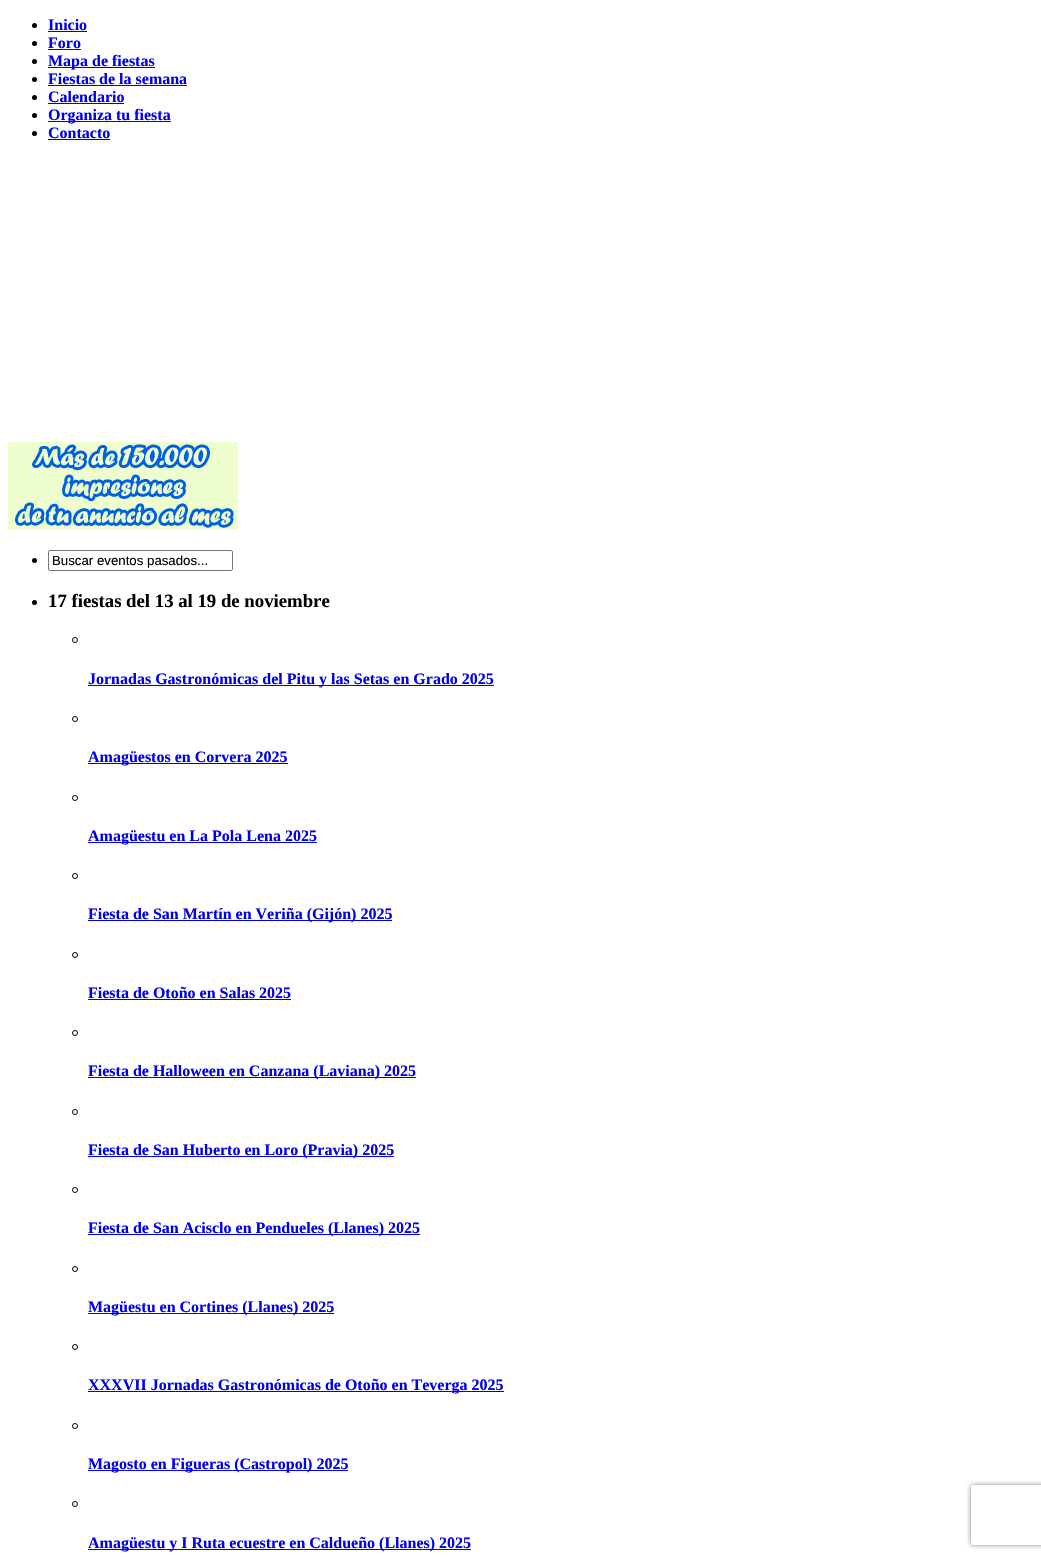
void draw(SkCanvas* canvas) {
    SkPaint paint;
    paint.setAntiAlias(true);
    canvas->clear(0xFFFFFFFF);
    paint.setColor(0xFF000000);
    canvas->drawCircle(34.5f, 25.5f, 2.5f, paint);
    SkFont font1(fontMgr->matchFamilyStyle("Liberation Serif", SkFontStyle::Bold()), 16);
    font1.setSubpixel(true);
    paint.setColor(0xFF0000EE);
    canvas->drawString("Inicio", 48, 30, font1, paint);
    canvas->drawRect(SkRect::MakeXYWH(48, 31, 39, 1), paint);
    paint.setColor(0xFF000000);
    canvas->drawCircle(34.5f, 43.5f, 2.5f, paint);
    paint.setColor(0xFF0000EE);
    canvas->drawString("Foro", 48, 48, font1, paint);
    canvas->drawRect(SkRect::MakeXYWH(48, 49, 33, 1), paint);
    paint.setColor(0xFF000000);
    canvas->drawCircle(34.5f, 61.5f, 2.5f, paint);
    paint.setColor(0xFF0000EE);
    canvas->drawRect(SkRect::MakeXYWH(48, 67, 107, 1), paint);
    canvas->drawString("Mapa de fiestas", 48, 66, font1, paint);
    paint.setColor(0xFF000000);
    canvas->drawCircle(34.5f, 79.5f, 2.5f, paint);
    paint.setColor(0xFF0000EE);
    canvas->drawString("Fiestas de la semana", 48, 84, font1, paint);
    canvas->drawRect(SkRect::MakeXYWH(48, 85, 139, 1), paint);
    paint.setColor(0xFF000000);
    canvas->drawCircle(34.5f, 97.5f, 2.5f, paint);
    paint.setColor(0xFF0000EE);
    canvas->drawString("Calendario", 48, 102, font1, paint);
    canvas->drawRect(SkRect::MakeXYWH(48, 103, 76, 1), paint);
    paint.setColor(0xFF000000);
    canvas->drawCircle(34.5f, 115.5f, 2.5f, paint);
    paint.setColor(0xFF0000EE);
    canvas->drawRect(SkRect::MakeXYWH(48, 121, 123, 1), paint);
    canvas->drawString("Organiza tu fiesta", 48, 120, font1, paint);
    paint.setColor(0xFF000000);
    canvas->drawCircle(34.5f, 133.5f, 2.5f, paint);
    paint.setColor(0xFF0000EE);
    canvas->drawString("Contacto", 48, 138, font1, paint);
    canvas->drawRect(SkRect::MakeXYWH(48, 139, 62, 1), paint);
    canvas->drawImageRect(SkImages::DeferredFromEncodedData(SkData::MakeFromFileName("img1.png")), SkRect::MakeXYWH(8, 442, 230, 88), SkSamplingOptions());
    paint.setColor(0xFF000000);
    canvas->drawCircle(34.5f, 560.5f, 2.5f, paint);
    paint.setStyle(SkPaint::kStroke_Style);
    paint.setStrokeWidth(1);
    paint.setColor(0xFF767676);
    canvas->drawRoundRect(SkRect::MakeXYWH(48.5f, 550.5f, 184, 20), 1.5f, 1.5f, paint);
    SkFont font2(fontMgr->matchFamilyStyle("Liberation Sans", SkFontStyle::Normal()), 13.25f);
    font2.setSubpixel(true);
    paint.setStyle(SkPaint::kFill_Style);
    paint.setColor(0xFF000000);
    canvas->drawString("Buscar eventos pasados...", 52, 565, font2, paint);
    canvas->drawCircle(34.5f, 602.5f, 2.5f, paint);
    SkFont font3(fontMgr->matchFamilyStyle("Liberation Serif", SkFontStyle::Bold()), 18.75f);
    font3.setSubpixel(true);
    canvas->drawString("17 fiestas del 13 al 19 de noviembre", 48, 607, font3, paint);
    paint.setStyle(SkPaint::kStroke_Style);
    canvas->drawCircle(75, 640, 2.5f, paint);
    paint.setStyle(SkPaint::kFill_Style);
    paint.setColor(0xFF0000EE);
    canvas->drawRect(SkRect::MakeXYWH(88, 685, 406, 1), paint);
    canvas->drawString("Jornadas Gastronómicas del Pitu y las Setas en Grado 2025", 88, 684, font1, paint);
    paint.setStyle(SkPaint::kStroke_Style);
    paint.setColor(0xFF000000);
    canvas->drawCircle(75, 719, 2.5f, paint);
    paint.setStyle(SkPaint::kFill_Style);
    paint.setColor(0xFF0000EE);
    canvas->drawRect(SkRect::MakeXYWH(88, 763, 200, 1), paint);
    canvas->drawString("Amagüestos en Corvera 2025", 88, 762, font1, paint);
    paint.setStyle(SkPaint::kStroke_Style);
    paint.setColor(0xFF000000);
    canvas->drawCircle(75, 798, 2.5f, paint);
    paint.setStyle(SkPaint::kFill_Style);
    paint.setColor(0xFF0000EE);
    canvas->drawRect(SkRect::MakeXYWH(88, 842, 229, 1), paint);
    canvas->drawString("Amagüestu en La Pola Lena 2025", 88, 841, font1, paint);
    paint.setStyle(SkPaint::kStroke_Style);
    paint.setColor(0xFF000000);
    canvas->drawCircle(75, 876, 2.5f, paint);
    paint.setStyle(SkPaint::kFill_Style);
    paint.setColor(0xFF0000EE);
    canvas->drawRect(SkRect::MakeXYWH(88, 920, 304, 1), paint);
    canvas->drawString("Fiesta de San Martín en Veriña (Gijón) 2025", 88, 919, font1, paint);
    paint.setStyle(SkPaint::kStroke_Style);
    paint.setColor(0xFF000000);
    canvas->drawCircle(75, 955, 2.5f, paint);
    paint.setStyle(SkPaint::kFill_Style);
    paint.setColor(0xFF0000EE);
    canvas->drawString("Fiesta de Otoño en Salas 2025", 88, 998, font1, paint);
    canvas->drawRect(SkRect::MakeXYWH(88, 999, 203, 1), paint);
    paint.setStyle(SkPaint::kStroke_Style);
    paint.setColor(0xFF000000);
    canvas->drawCircle(75, 1033, 2.5f, paint);
    paint.setStyle(SkPaint::kFill_Style);
    paint.setColor(0xFF0000EE);
    canvas->drawRect(SkRect::MakeXYWH(88, 1077, 328, 1), paint);
    canvas->drawString("Fiesta de Halloween en Canzana (Laviana) 2025", 88, 1076, font1, paint);
    paint.setStyle(SkPaint::kStroke_Style);
    paint.setColor(0xFF000000);
    canvas->drawCircle(75, 1112, 2.5f, paint);
    paint.setStyle(SkPaint::kFill_Style);
    paint.setColor(0xFF0000EE);
    canvas->drawRect(SkRect::MakeXYWH(88, 1156, 306, 1), paint);
    canvas->drawString("Fiesta de San Huberto en Loro (Pravia) 2025", 88, 1155, font1, paint);
    paint.setStyle(SkPaint::kStroke_Style);
    paint.setColor(0xFF000000);
    canvas->drawCircle(75, 1190, 2.5f, paint);
    paint.setStyle(SkPaint::kFill_Style);
    paint.setColor(0xFF0000EE);
    canvas->drawRect(SkRect::MakeXYWH(88, 1234, 332, 1), paint);
    canvas->drawString("Fiesta de San Acisclo en Pendueles (Llanes) 2025", 88, 1233, font1, paint);
    paint.setStyle(SkPaint::kStroke_Style);
    paint.setColor(0xFF000000);
    canvas->drawCircle(75, 1269, 2.5f, paint);
    paint.setStyle(SkPaint::kFill_Style);
    paint.setColor(0xFF0000EE);
    canvas->drawRect(SkRect::MakeXYWH(88, 1313, 246, 1), paint);
    canvas->drawString("Magüestu en Cortines (Llanes) 2025", 88, 1312, font1, paint);
    paint.setStyle(SkPaint::kStroke_Style);
    paint.setColor(0xFF000000);
    canvas->drawCircle(75, 1347, 2.5f, paint);
    paint.setStyle(SkPaint::kFill_Style);
    paint.setColor(0xFF0000EE);
    canvas->drawRect(SkRect::MakeXYWH(88, 1391, 416, 1), paint);
    canvas->drawString("XXXVII Jornadas Gastronómicas de Otoño en Teverga 2025", 88, 1390, font1, paint);
    paint.setStyle(SkPaint::kStroke_Style);
    paint.setColor(0xFF000000);
    canvas->drawCircle(75, 1426, 2.5f, paint);
    paint.setStyle(SkPaint::kFill_Style);
    paint.setColor(0xFF0000EE);
    canvas->drawRect(SkRect::MakeXYWH(88, 1470, 260, 1), paint);
    canvas->drawString("Magosto en Figueras (Castropol) 2025", 88, 1469, font1, paint);
    paint.setStyle(SkPaint::kStroke_Style);
    paint.setColor(0xFF000000);
    canvas->drawCircle(75, 1504, 2.5f, paint);
    paint.setStyle(SkPaint::kFill_Style);
    paint.setColor(0xFF0000EE);
    canvas->drawRect(SkRect::MakeXYWH(88, 1549, 383, 1), paint);
    canvas->drawString("Amagüestu y I Ruta ecuestre en Caldueño (Llanes) 2025", 88, 1548, font1, paint);
    canvas->save();
    canvas->clipPath(SkPathBuilder(SkPathFillType::kEvenOdd).moveTo(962, 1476).lineTo(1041, 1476).lineTo(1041, 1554).lineTo(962, 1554).close().moveTo(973, 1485).lineTo(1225, 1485).cubicTo(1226, 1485, 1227, 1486, 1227, 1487).lineTo(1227, 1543).cubicTo(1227, 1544, 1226, 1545, 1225, 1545).lineTo(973, 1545).cubicTo(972, 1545, 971, 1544, 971, 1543).lineTo(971, 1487).cubicTo(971, 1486, 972, 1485, 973, 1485).close().detach(), true);
    paint.setColor(0xFF808080);
    paint.setMaskFilter(SkMaskFilter::MakeBlur(kNormal_SkBlurStyle, 2.5f));
    canvas->drawRoundRect(SkRect::MakeXYWH(971, 1485, 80, 60), 2, 2, paint);
    paint.setMaskFilter(nullptr);
    canvas->restore();
}
